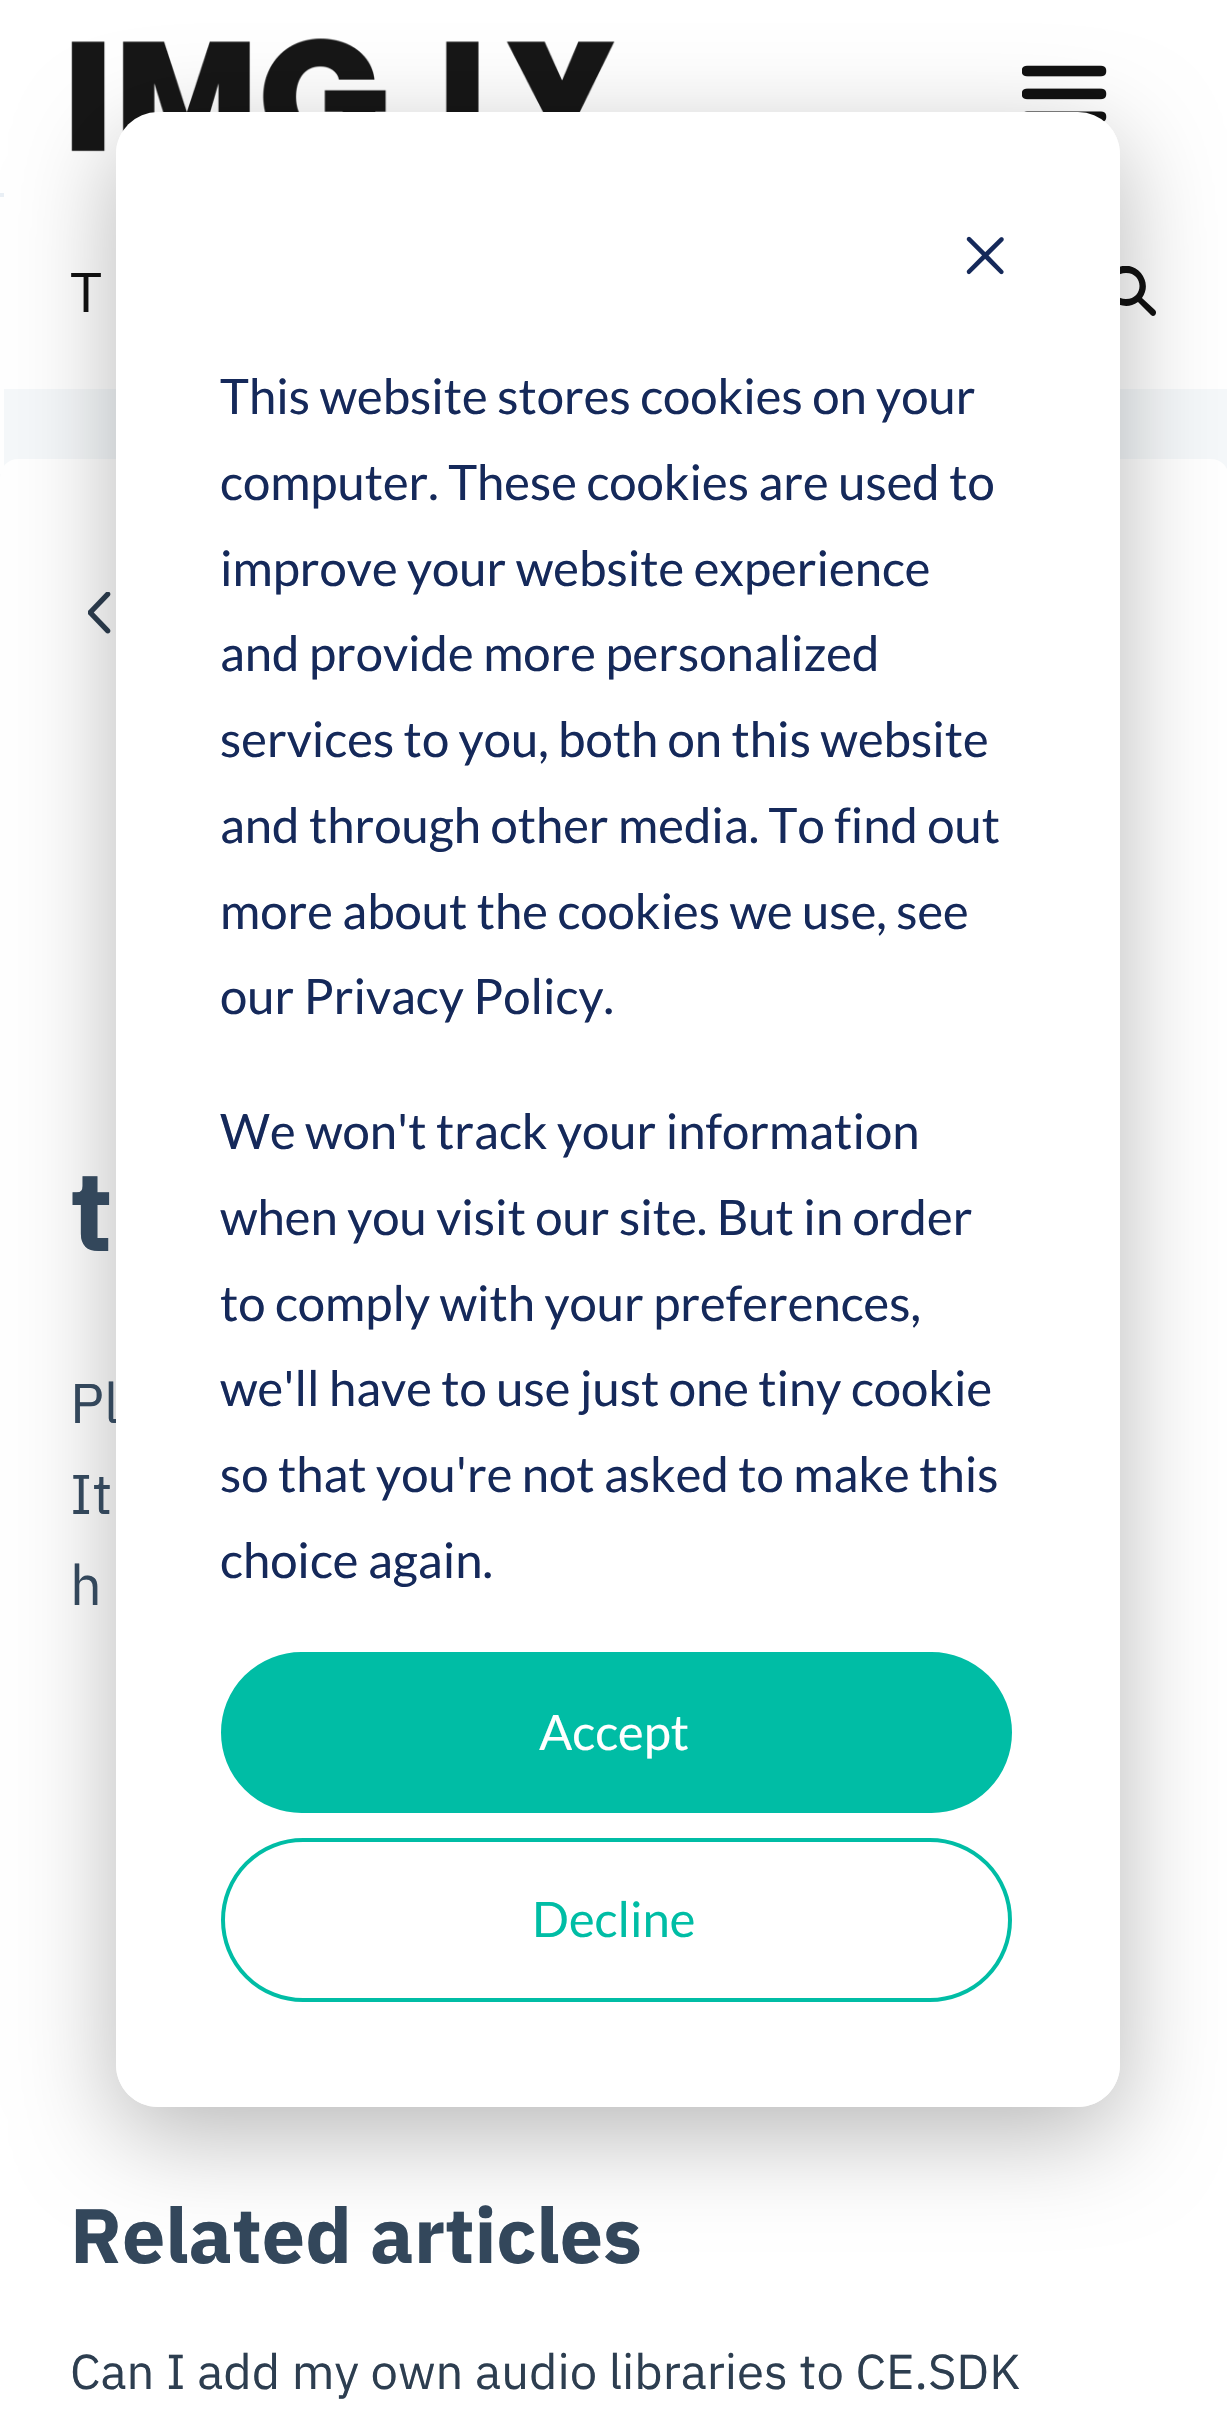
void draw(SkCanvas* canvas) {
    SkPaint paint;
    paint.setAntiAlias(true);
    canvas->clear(0xFFF5F8FA);
    paint.setColor(0xFFFFFFFF);
    canvas->drawRect(SkRect::MakeXYWH(0, 0, 1227, 389), paint);
    canvas->drawImageRect(SkImages::DeferredFromEncodedData(SkData::MakeFromFileName("img1.png")), SkRect::MakeXYWH(71, 38, 544, 114), SkSamplingOptions());
    canvas->drawImageRect(SkImages::DeferredFromEncodedData(SkData::MakeFromFileName("img2.png")), SkRect::MakeXYWH(1022, 65, 85, 57), SkSamplingOptions());
    canvas->drawRoundRect(SkRect::MakeXYWH(0, 459, 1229, 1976), 18, 18, paint);
    canvas->drawRect(SkRect::MakeXYWH(0, 389, 4, 85), paint);
    paint.setColor(0xFFEAF0F6);
    canvas->drawRect(SkRect::MakeXYWH(0, 193, 4, 4), paint);
    SkFont font1(fontMgr->matchFamilyStyle("IBM Plex Sans", SkFontStyle::Normal()), 56);
    font1.setSubpixel(true);
    paint.setColor(0xFF111111);
    canvas->drawString("T", 70, 312, font1, paint);
    canvas->save();
    canvas->clipRect(SkRect::MakeXYWH(1106, 266, 53, 53));
    canvas->drawPath(SkPathBuilder(SkPathFillType::kEvenOdd).moveTo(1155, 310).lineTo(1142, 298).cubicTo(1156, 278, 1129, 254, 1112, 272).cubicTo(1094, 289, 1118, 316, 1138, 302).lineTo(1151, 315).cubicTo(1154, 318, 1158, 313, 1155, 310).close().moveTo(1126, 299).cubicTo(1109, 299, 1109, 273, 1126, 273).cubicTo(1144, 273, 1144, 299, 1126, 299).close().detach(), paint);
    canvas->restore();
    canvas->drawImageRect(SkImages::DeferredFromEncodedData(SkData::MakeFromFileName("img4.png")), SkRect::MakeXYWH(88, 592, 23, 42), SkSamplingOptions());
    canvas->save();
    canvas->clipPath(SkPathBuilder(SkPathFillType::kEvenOdd).moveTo(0, 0).lineTo(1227, 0).lineTo(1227, 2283).lineTo(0, 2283).close().moveTo(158, 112).lineTo(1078, 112).cubicTo(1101, 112, 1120, 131, 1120, 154).lineTo(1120, 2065).cubicTo(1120, 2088, 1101, 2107, 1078, 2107).lineTo(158, 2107).cubicTo(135, 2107, 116, 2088, 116, 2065).lineTo(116, 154).cubicTo(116, 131, 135, 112, 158, 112).close().detach(), true);
    paint.setColor(0x47000000);
    paint.setMaskFilter(SkMaskFilter::MakeBlur(kNormal_SkBlurStyle, 49));
    canvas->drawRoundRect(SkRect::MakeXYWH(116, 140, 1004, 1995), 42, 42, paint);
    paint.setMaskFilter(nullptr);
    canvas->restore();
    paint.setColor(0xFF33475B);
    canvas->drawString("Pl", 70, 1423, font1, paint);
    paint.setColor(0xFFFFFFFF);
    canvas->drawRoundRect(SkRect::MakeXYWH(116, 112, 1004, 1995), 42, 42, paint);
    canvas->drawImageRect(SkImages::DeferredFromEncodedData(SkData::MakeFromFileName("img3.png")), SkRect::MakeXYWH(966, 236, 38, 39), SkSamplingOptions());
    SkFont font2(fontMgr->matchFamilyStyle("Lato", SkFontStyle::Normal()), 49);
    font2.setSubpixel(true);
    paint.setColor(0xFF15295A);
    canvas->drawString("This website stores cookies on your", 220, 414, font2, paint);
    canvas->drawString("computer. These cookies are used to", 220, 500, font2, paint);
    canvas->drawString("improve your website experience", 220, 586, font2, paint);
    canvas->drawString("and provide more personalized", 220, 671, font2, paint);
    canvas->drawString("services to you, both on this website", 220, 757, font2, paint);
    canvas->drawString("and through other media. To find out", 220, 843, font2, paint);
    canvas->drawString("more about the cookies we use, see", 220, 929, font2, paint);
    canvas->drawString("our Privacy Policy.", 220, 1014, font2, paint);
    canvas->drawString("We won't track your information", 220, 1149, font2, paint);
    canvas->drawString("when you visit our site. But in order", 220, 1235, font2, paint);
    canvas->drawString("to comply with your preferences,", 220, 1321, font2, paint);
    canvas->drawString("we'll have to use just one tiny cookie", 220, 1406, font2, paint);
    canvas->drawString("so that you're not asked to make this", 220, 1492, font2, paint);
    canvas->drawString("choice again.", 220, 1578, font2, paint);
    paint.setColor(0xFF00BDA5);
    canvas->drawRoundRect(SkRect::MakeXYWH(223, 1654, 787, 157), 78.5f, 78.5f, paint);
    paint.setStyle(SkPaint::kStroke_Style);
    paint.setStrokeWidth(4);
    canvas->drawRoundRect(SkRect::MakeXYWH(223, 1654, 787, 157), 78.5f, 78.5f, paint);
    paint.setStyle(SkPaint::kFill_Style);
    paint.setColor(0xFFFFFFFF);
    canvas->drawString("Accept", 539, 1750, font2, paint);
    paint.setStyle(SkPaint::kStroke_Style);
    paint.setColor(0xFF00BDA5);
    canvas->drawRoundRect(SkRect::MakeXYWH(223, 1840, 787, 160), 80, 80, paint);
    paint.setStyle(SkPaint::kFill_Style);
    canvas->drawString("Decline", 532, 1937, font2, paint);
    SkFont font3(fontMgr->matchFamilyStyle("IBM Plex Sans", SkFontStyle::Bold()), 112);
    font3.setSubpixel(true);
    paint.setColor(0xFF33475B);
    canvas->drawString("t", 70, 1251, font3, paint);
    canvas->drawString("It", 70, 1514, font1, paint);
    canvas->drawString("h", 70, 1605, font1, paint);
    SkFont font4(fontMgr->matchFamilyStyle("IBM Plex Sans", SkFontStyle::Bold()), 77);
    font4.setSubpixel(true);
    canvas->drawString("Related articles", 70, 2263, font4, paint);
    SkFont font5(fontMgr->matchFamilyStyle("IBM Plex Sans", SkFontStyle::Normal()), 49);
    font5.setSubpixel(true);
    paint.setColor(0xFF2D3E50);
    canvas->drawString("Can I add my own audio libraries to CE.SDK", 70, 2389, font5, paint);
}
